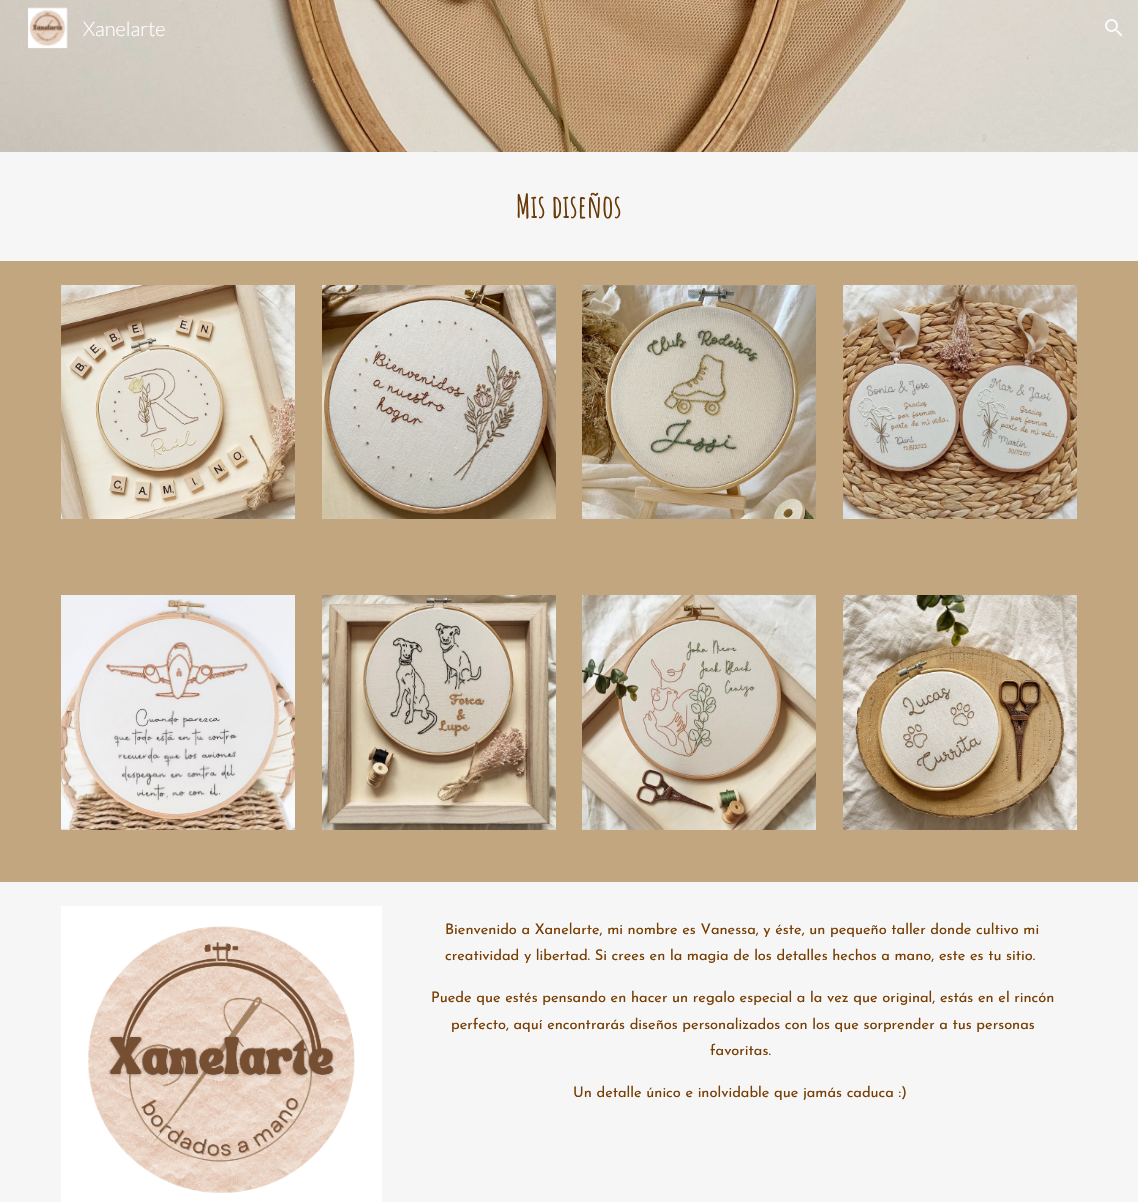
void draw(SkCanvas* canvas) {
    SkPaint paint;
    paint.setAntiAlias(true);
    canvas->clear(0xFFFFFFFF);
    canvas->drawImageRect(SkImages::DeferredFromEncodedData(SkData::MakeFromFileName("img3.png")), SkRect::MakeXYWH(0, 0, 1138, 152), SkSamplingOptions());
    canvas->drawImageRect(SkImages::DeferredFromEncodedData(SkData::MakeFromFileName("img1.png")), SkRect::MakeXYWH(28, 7, 40, 42), SkSamplingOptions());
    SkFont font1(fontMgr->matchFamilyStyle("Lato", SkFontStyle(300, SkFontStyle::kNormal_Width, SkFontStyle::kUpright_Slant)), 20);
    font1.setSubpixel(true);
    paint.setColor(0xFFFFFFFF);
    canvas->drawString("Xanelarte", 83, 36, font1, paint);
    canvas->drawImageRect(SkImages::DeferredFromEncodedData(SkData::MakeFromFileName("img2.png")), SkRect::MakeXYWH(1105, 19, 18, 18), SkSamplingOptions());
    paint.setColor(0xFFF6F6F6);
    canvas->drawRect(SkRect::MakeXYWH(0, 152, 1138, 109), paint);
    SkFont font2(fontMgr->matchFamilyStyle("Amatic SC", SkFontStyle::Bold()), 32);
    font2.setSubpixel(true);
    paint.setColor(0xFF693A07);
    canvas->drawString("Mis diseños", 516, 218, font2, paint);
    paint.setColor(0xFFC2A680);
    canvas->drawRect(SkRect::MakeXYWH(0, 261, 1138, 621), paint);
    canvas->drawImageRect(SkImages::DeferredFromEncodedData(SkData::MakeFromFileName("img4.png")), SkRect::MakeXYWH(61, 285, 234, 234), SkSamplingOptions());
    canvas->drawImageRect(SkImages::DeferredFromEncodedData(SkData::MakeFromFileName("img5.png")), SkRect::MakeXYWH(322, 285, 234, 234), SkSamplingOptions());
    canvas->drawImageRect(SkImages::DeferredFromEncodedData(SkData::MakeFromFileName("img6.png")), SkRect::MakeXYWH(582, 285, 234, 234), SkSamplingOptions());
    canvas->drawImageRect(SkImages::DeferredFromEncodedData(SkData::MakeFromFileName("img7.png")), SkRect::MakeXYWH(843, 285, 234, 234), SkSamplingOptions());
    canvas->drawImageRect(SkImages::DeferredFromEncodedData(SkData::MakeFromFileName("img8.png")), SkRect::MakeXYWH(61, 595, 234, 235), SkSamplingOptions());
    canvas->drawImageRect(SkImages::DeferredFromEncodedData(SkData::MakeFromFileName("img9.png")), SkRect::MakeXYWH(322, 595, 234, 235), SkSamplingOptions());
    canvas->drawImageRect(SkImages::DeferredFromEncodedData(SkData::MakeFromFileName("img10.png")), SkRect::MakeXYWH(582, 595, 234, 235), SkSamplingOptions());
    canvas->drawImageRect(SkImages::DeferredFromEncodedData(SkData::MakeFromFileName("img11.png")), SkRect::MakeXYWH(843, 595, 234, 235), SkSamplingOptions());
    paint.setColor(0xFFF6F6F6);
    canvas->drawRect(SkRect::MakeXYWH(0, 882, 1138, 320), paint);
    canvas->drawImageRect(SkImages::DeferredFromEncodedData(SkData::MakeFromFileName("img12.png")), SkRect::MakeXYWH(61, 906, 321, 296), SkSamplingOptions());
    SkFont font3(fontMgr->matchFamilyStyle("Josefin Sans", SkFontStyle::Normal()), 14.65f);
    font3.setSubpixel(true);
    paint.setColor(0xFF783F04);
    canvas->drawString("Bienvenido a Xanelarte, mi nombre es Vanessa, y éste, un pequeño taller donde cultivo mi", 445, 934, font3, paint);
    canvas->drawString("creatividad y libertad. Si crees en la magia de los detalles hechos a mano, este es tu sitio.", 445, 960, font3, paint);
    canvas->drawString("Puede que estés pensando en hacer un regalo especial a la vez que original, estás en el rincón", 431, 1002, font3, paint);
    canvas->drawString("perfecto, aquí encontrarás diseños personalizados con los que sorprender a tus personas", 451, 1029, font3, paint);
    canvas->drawString("favoritas.", 710, 1055, font3, paint);
    canvas->drawString("Un detalle único e inolvidable que jamás caduca :)", 573, 1097, font3, paint);
}
